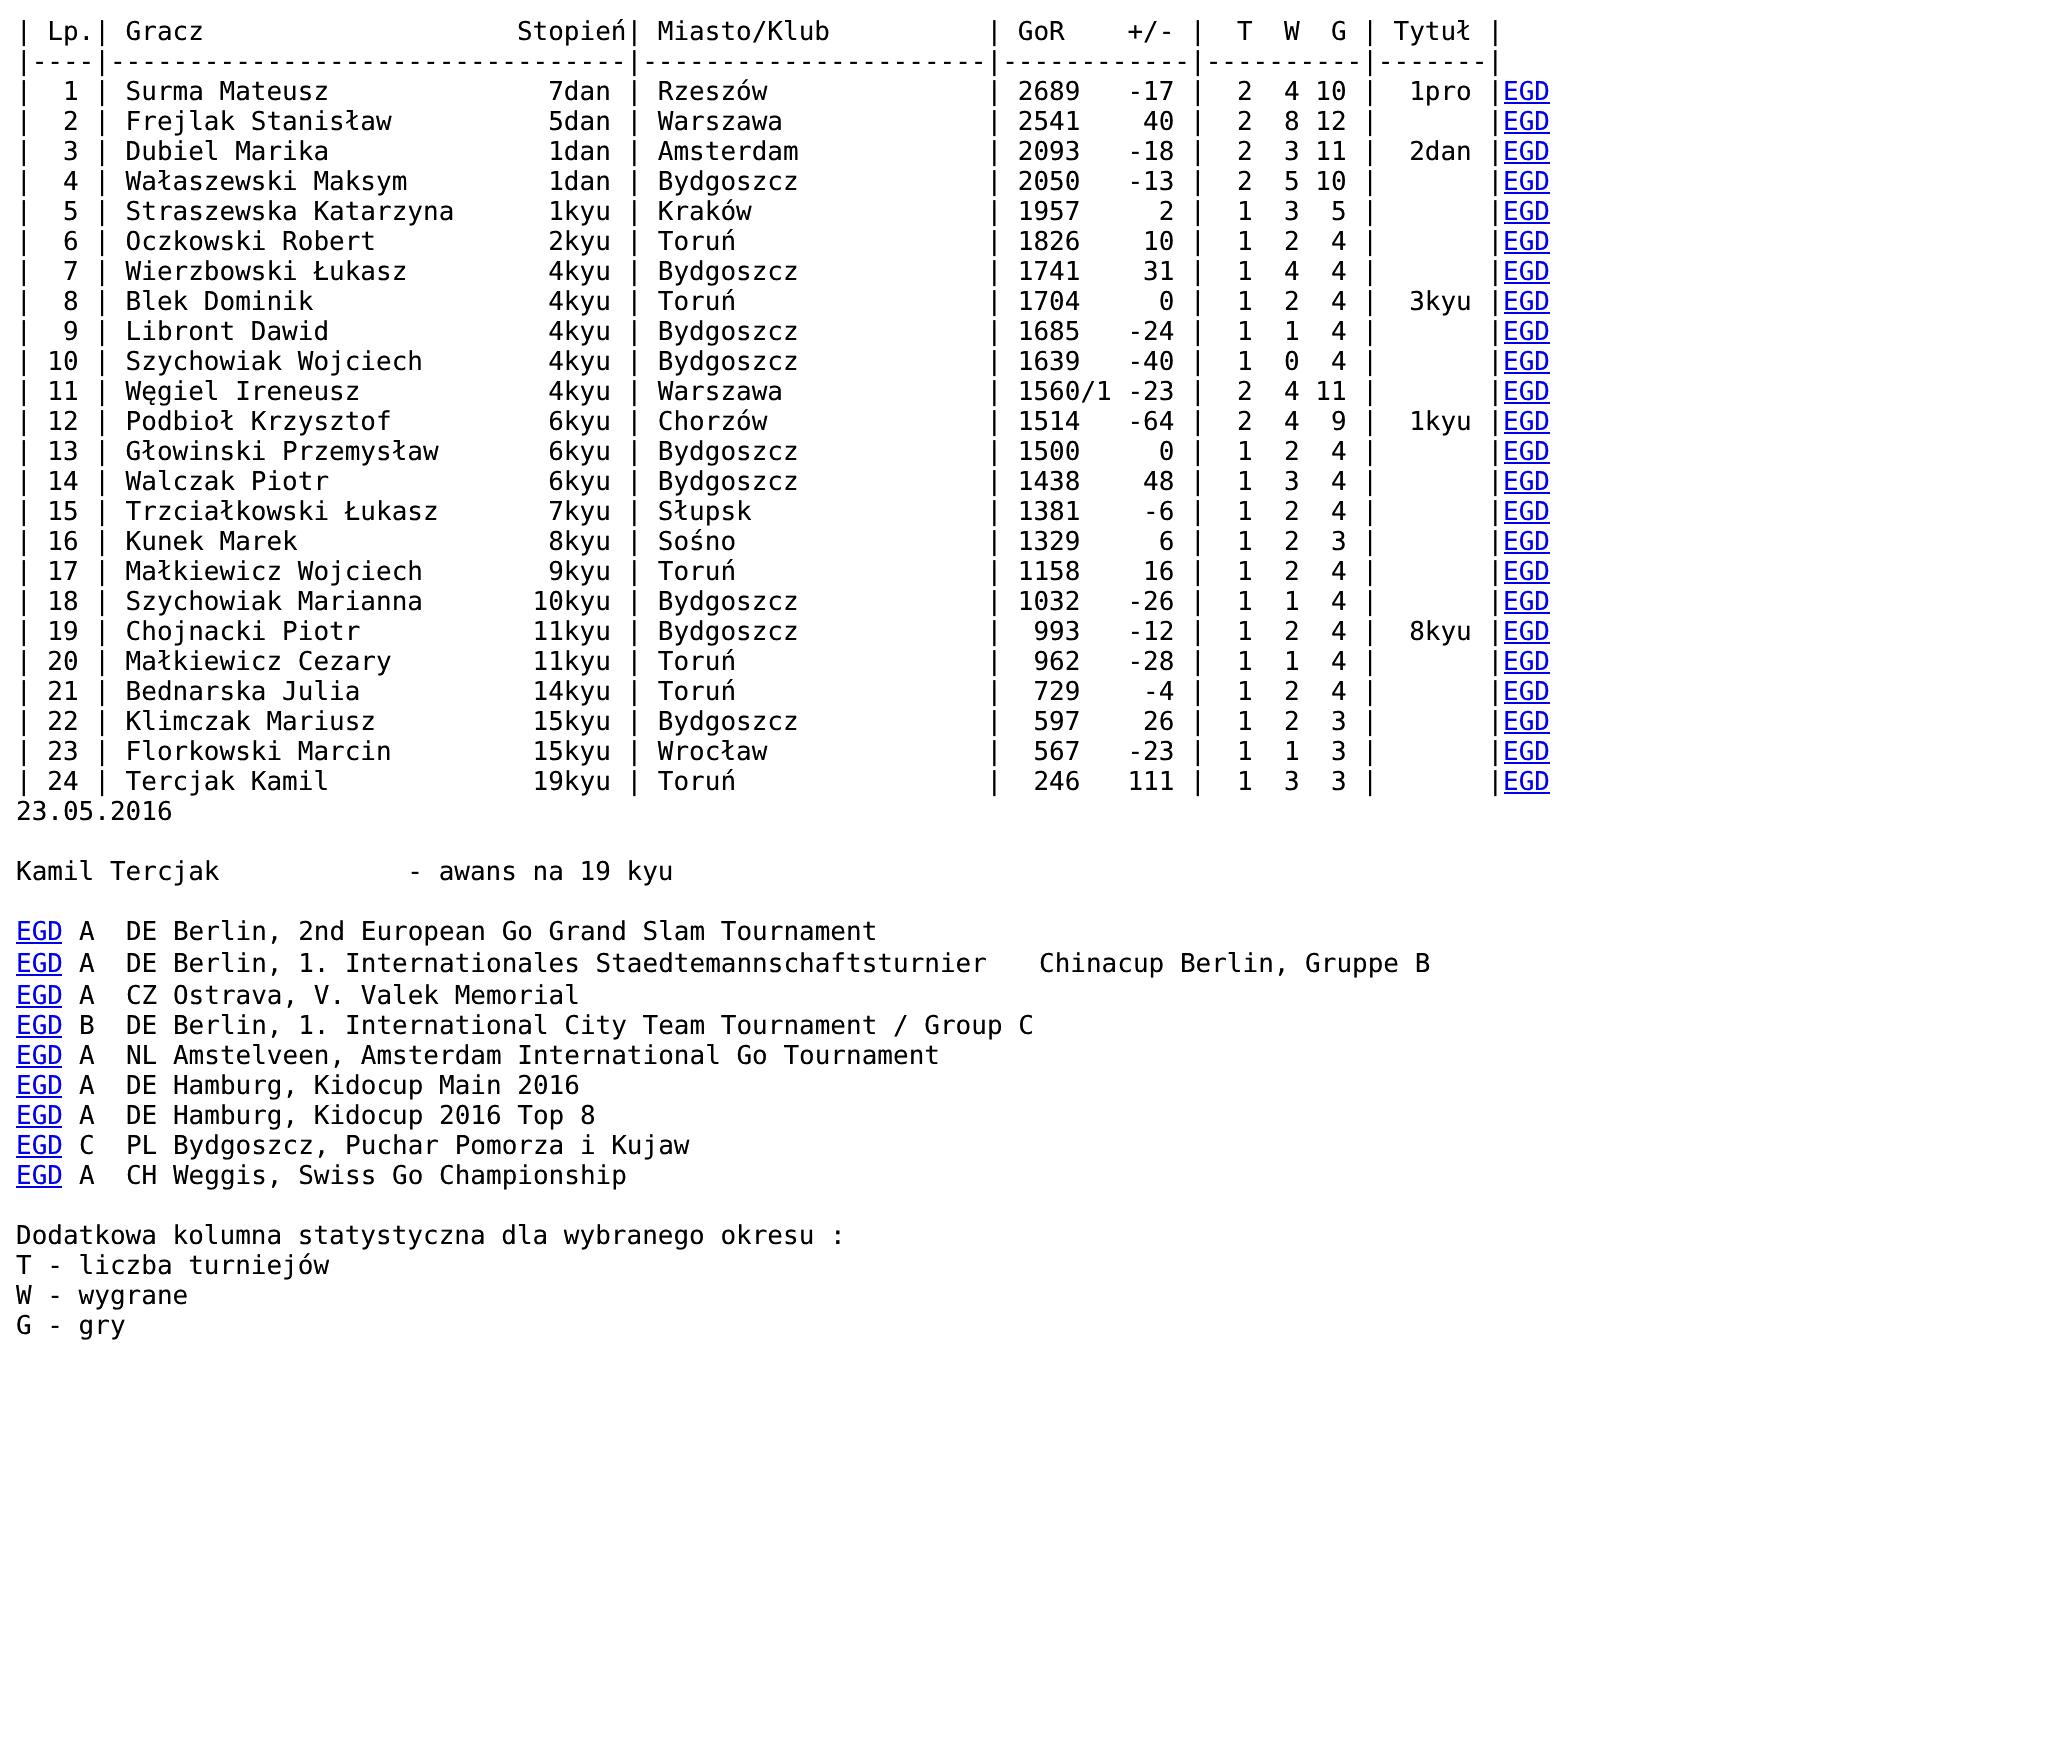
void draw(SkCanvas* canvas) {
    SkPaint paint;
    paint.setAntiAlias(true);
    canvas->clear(0xFFFFFFFF);
    SkFont font1(fontMgr->matchFamilyStyle("DejaVu Sans Mono", SkFontStyle::Normal()), 26);
    font1.setSubpixel(true);
    paint.setColor(0xFF000000);
    canvas->drawString("| Lp.| Gracz                    Stopień| Miasto/Klub          | GoR    +/- |  T  W  G | Tytuł |", 16, 40, font1, paint);
    canvas->drawString("|----|---------------------------------|----------------------|------------|----------|-------|", 16, 70, font1, paint);
    canvas->drawString("|  1 | Surma Mateusz              7dan | Rzeszów              | 2689   -17 |  2  4 10 |  1pro |", 16, 100, font1, paint);
    paint.setColor(0xFF0000EE);
    canvas->drawString("EGD", 1503, 100, font1, paint);
    canvas->drawRect(SkRect::MakeXYWH(1504, 102, 46, 2), paint);
    paint.setColor(0xFF000000);
    canvas->drawString("|  2 | Frejlak Stanisław          5dan | Warszawa             | 2541    40 |  2  8 12 |       |", 16, 130, font1, paint);
    paint.setColor(0xFF0000EE);
    canvas->drawString("EGD", 1503, 130, font1, paint);
    canvas->drawRect(SkRect::MakeXYWH(1504, 132, 46, 2), paint);
    paint.setColor(0xFF000000);
    canvas->drawString("|  3 | Dubiel Marika              1dan | Amsterdam            | 2093   -18 |  2  3 11 |  2dan |", 16, 160, font1, paint);
    paint.setColor(0xFF0000EE);
    canvas->drawString("EGD", 1503, 160, font1, paint);
    canvas->drawRect(SkRect::MakeXYWH(1504, 162, 46, 2), paint);
    paint.setColor(0xFF000000);
    canvas->drawString("|  4 | Wałaszewski Maksym         1dan | Bydgoszcz            | 2050   -13 |  2  5 10 |       |", 16, 190, font1, paint);
    paint.setColor(0xFF0000EE);
    canvas->drawString("EGD", 1503, 190, font1, paint);
    canvas->drawRect(SkRect::MakeXYWH(1504, 192, 46, 2), paint);
    paint.setColor(0xFF000000);
    canvas->drawString("|  5 | Straszewska Katarzyna      1kyu | Kraków               | 1957     2 |  1  3  5 |       |", 16, 220, font1, paint);
    paint.setColor(0xFF0000EE);
    canvas->drawString("EGD", 1503, 220, font1, paint);
    canvas->drawRect(SkRect::MakeXYWH(1504, 222, 46, 2), paint);
    paint.setColor(0xFF000000);
    canvas->drawString("|  6 | Oczkowski Robert           2kyu | Toruń                | 1826    10 |  1  2  4 |       |", 16, 250, font1, paint);
    paint.setColor(0xFF0000EE);
    canvas->drawString("EGD", 1503, 250, font1, paint);
    canvas->drawRect(SkRect::MakeXYWH(1504, 252, 46, 2), paint);
    paint.setColor(0xFF000000);
    canvas->drawString("|  7 | Wierzbowski Łukasz         4kyu | Bydgoszcz            | 1741    31 |  1  4  4 |       |", 16, 280, font1, paint);
    paint.setColor(0xFF0000EE);
    canvas->drawString("EGD", 1503, 280, font1, paint);
    canvas->drawRect(SkRect::MakeXYWH(1504, 282, 46, 2), paint);
    paint.setColor(0xFF000000);
    canvas->drawString("|  8 | Blek Dominik               4kyu | Toruń                | 1704     0 |  1  2  4 |  3kyu |", 16, 310, font1, paint);
    paint.setColor(0xFF0000EE);
    canvas->drawString("EGD", 1503, 310, font1, paint);
    canvas->drawRect(SkRect::MakeXYWH(1504, 312, 46, 2), paint);
    paint.setColor(0xFF000000);
    canvas->drawString("|  9 | Libront Dawid              4kyu | Bydgoszcz            | 1685   -24 |  1  1  4 |       |", 16, 340, font1, paint);
    paint.setColor(0xFF0000EE);
    canvas->drawString("EGD", 1503, 340, font1, paint);
    canvas->drawRect(SkRect::MakeXYWH(1504, 342, 46, 2), paint);
    paint.setColor(0xFF000000);
    canvas->drawString("| 10 | Szychowiak Wojciech        4kyu | Bydgoszcz            | 1639   -40 |  1  0  4 |       |", 16, 370, font1, paint);
    paint.setColor(0xFF0000EE);
    canvas->drawString("EGD", 1503, 370, font1, paint);
    canvas->drawRect(SkRect::MakeXYWH(1504, 372, 46, 2), paint);
    paint.setColor(0xFF000000);
    canvas->drawString("| 11 | Węgiel Ireneusz            4kyu | Warszawa             | 1560/1 -23 |  2  4 11 |       |", 16, 400, font1, paint);
    paint.setColor(0xFF0000EE);
    canvas->drawString("EGD", 1503, 400, font1, paint);
    canvas->drawRect(SkRect::MakeXYWH(1504, 402, 46, 2), paint);
    paint.setColor(0xFF000000);
    canvas->drawString("| 12 | Podbioł Krzysztof          6kyu | Chorzów              | 1514   -64 |  2  4  9 |  1kyu |", 16, 430, font1, paint);
    paint.setColor(0xFF0000EE);
    canvas->drawString("EGD", 1503, 430, font1, paint);
    canvas->drawRect(SkRect::MakeXYWH(1504, 432, 46, 2), paint);
    paint.setColor(0xFF000000);
    canvas->drawString("| 13 | Głowinski Przemysław       6kyu | Bydgoszcz            | 1500     0 |  1  2  4 |       |", 16, 460, font1, paint);
    paint.setColor(0xFF0000EE);
    canvas->drawString("EGD", 1503, 460, font1, paint);
    canvas->drawRect(SkRect::MakeXYWH(1504, 462, 46, 2), paint);
    paint.setColor(0xFF000000);
    canvas->drawString("| 14 | Walczak Piotr              6kyu | Bydgoszcz            | 1438    48 |  1  3  4 |       |", 16, 490, font1, paint);
    paint.setColor(0xFF0000EE);
    canvas->drawString("EGD", 1503, 490, font1, paint);
    canvas->drawRect(SkRect::MakeXYWH(1504, 492, 46, 2), paint);
    paint.setColor(0xFF000000);
    canvas->drawString("| 15 | Trzciałkowski Łukasz       7kyu | Słupsk               | 1381    -6 |  1  2  4 |       |", 16, 520, font1, paint);
    paint.setColor(0xFF0000EE);
    canvas->drawString("EGD", 1503, 520, font1, paint);
    canvas->drawRect(SkRect::MakeXYWH(1504, 522, 46, 2), paint);
    paint.setColor(0xFF000000);
    canvas->drawString("| 16 | Kunek Marek                8kyu | Sośno                | 1329     6 |  1  2  3 |       |", 16, 550, font1, paint);
    paint.setColor(0xFF0000EE);
    canvas->drawString("EGD", 1503, 550, font1, paint);
    canvas->drawRect(SkRect::MakeXYWH(1504, 552, 46, 2), paint);
    paint.setColor(0xFF000000);
    canvas->drawString("| 17 | Małkiewicz Wojciech        9kyu | Toruń                | 1158    16 |  1  2  4 |       |", 16, 580, font1, paint);
    paint.setColor(0xFF0000EE);
    canvas->drawString("EGD", 1503, 580, font1, paint);
    canvas->drawRect(SkRect::MakeXYWH(1504, 582, 46, 2), paint);
    paint.setColor(0xFF000000);
    canvas->drawString("| 18 | Szychowiak Marianna       10kyu | Bydgoszcz            | 1032   -26 |  1  1  4 |       |", 16, 610, font1, paint);
    paint.setColor(0xFF0000EE);
    canvas->drawString("EGD", 1503, 610, font1, paint);
    canvas->drawRect(SkRect::MakeXYWH(1504, 612, 46, 2), paint);
    paint.setColor(0xFF000000);
    canvas->drawString("| 19 | Chojnacki Piotr           11kyu | Bydgoszcz            |  993   -12 |  1  2  4 |  8kyu |", 16, 640, font1, paint);
    paint.setColor(0xFF0000EE);
    canvas->drawString("EGD", 1503, 640, font1, paint);
    canvas->drawRect(SkRect::MakeXYWH(1504, 642, 46, 2), paint);
    paint.setColor(0xFF000000);
    canvas->drawString("| 20 | Małkiewicz Cezary         11kyu | Toruń                |  962   -28 |  1  1  4 |       |", 16, 670, font1, paint);
    paint.setColor(0xFF0000EE);
    canvas->drawString("EGD", 1503, 670, font1, paint);
    canvas->drawRect(SkRect::MakeXYWH(1504, 672, 46, 2), paint);
    paint.setColor(0xFF000000);
    canvas->drawString("| 21 | Bednarska Julia           14kyu | Toruń                |  729    -4 |  1  2  4 |       |", 16, 700, font1, paint);
    paint.setColor(0xFF0000EE);
    canvas->drawString("EGD", 1503, 700, font1, paint);
    canvas->drawRect(SkRect::MakeXYWH(1504, 702, 46, 2), paint);
    paint.setColor(0xFF000000);
    canvas->drawString("| 22 | Klimczak Mariusz          15kyu | Bydgoszcz            |  597    26 |  1  2  3 |       |", 16, 730, font1, paint);
    paint.setColor(0xFF0000EE);
    canvas->drawString("EGD", 1503, 730, font1, paint);
    canvas->drawRect(SkRect::MakeXYWH(1504, 732, 46, 2), paint);
    paint.setColor(0xFF000000);
    canvas->drawString("| 23 | Florkowski Marcin         15kyu | Wrocław              |  567   -23 |  1  1  3 |       |", 16, 760, font1, paint);
    paint.setColor(0xFF0000EE);
    canvas->drawString("EGD", 1503, 760, font1, paint);
    canvas->drawRect(SkRect::MakeXYWH(1504, 762, 46, 2), paint);
    paint.setColor(0xFF000000);
    canvas->drawString("| 24 | Tercjak Kamil             19kyu | Toruń                |  246   111 |  1  3  3 |       |", 16, 790, font1, paint);
    paint.setColor(0xFF0000EE);
    canvas->drawString("EGD", 1503, 790, font1, paint);
    canvas->drawRect(SkRect::MakeXYWH(1504, 792, 46, 2), paint);
    paint.setColor(0xFF000000);
    canvas->drawString("23.05.2016", 16, 820, font1, paint);
    canvas->drawString("Kamil Tercjak            - awans na 19 kyu", 16, 880, font1, paint);
    paint.setColor(0xFF0000EE);
    canvas->drawString("EGD", 16, 940, font1, paint);
    canvas->drawRect(SkRect::MakeXYWH(16, 942, 46, 2), paint);
    paint.setColor(0xFF000000);
    canvas->drawString("A  DE Berlin, 2nd European Go Grand Slam Tournament", 79, 940, font1, paint);
    paint.setColor(0xFF0000EE);
    canvas->drawString("EGD", 16, 972, font1, paint);
    canvas->drawRect(SkRect::MakeXYWH(16, 974, 46, 2), paint);
    paint.setColor(0xFF000000);
    canvas->drawString("A  DE Berlin, 1. Internationales Staedtemannschaftsturnier", 79, 972, font1, paint);
    canvas->drawString("Chinacup Berlin, Gruppe B", 1039, 972, font1, paint);
    paint.setColor(0xFF0000EE);
    canvas->drawString("EGD", 16, 1004, font1, paint);
    canvas->drawRect(SkRect::MakeXYWH(16, 1006, 46, 2), paint);
    paint.setColor(0xFF000000);
    canvas->drawString("A  CZ Ostrava, V. Valek Memorial", 79, 1004, font1, paint);
    paint.setColor(0xFF0000EE);
    canvas->drawString("EGD", 16, 1034, font1, paint);
    canvas->drawRect(SkRect::MakeXYWH(16, 1036, 46, 2), paint);
    paint.setColor(0xFF000000);
    canvas->drawString("B  DE Berlin, 1. International City Team Tournament / Group C", 79, 1034, font1, paint);
    paint.setColor(0xFF0000EE);
    canvas->drawString("EGD", 16, 1064, font1, paint);
    canvas->drawRect(SkRect::MakeXYWH(16, 1066, 46, 2), paint);
    paint.setColor(0xFF000000);
    canvas->drawString("A  NL Amstelveen, Amsterdam International Go Tournament", 79, 1064, font1, paint);
    paint.setColor(0xFF0000EE);
    canvas->drawString("EGD", 16, 1094, font1, paint);
    canvas->drawRect(SkRect::MakeXYWH(16, 1096, 46, 2), paint);
    paint.setColor(0xFF000000);
    canvas->drawString("A  DE Hamburg, Kidocup Main 2016", 79, 1094, font1, paint);
    paint.setColor(0xFF0000EE);
    canvas->drawString("EGD", 16, 1124, font1, paint);
    canvas->drawRect(SkRect::MakeXYWH(16, 1126, 46, 2), paint);
    paint.setColor(0xFF000000);
    canvas->drawString("A  DE Hamburg, Kidocup 2016 Top 8", 79, 1124, font1, paint);
    paint.setColor(0xFF0000EE);
    canvas->drawString("EGD", 16, 1154, font1, paint);
    canvas->drawRect(SkRect::MakeXYWH(16, 1156, 46, 2), paint);
    paint.setColor(0xFF000000);
    canvas->drawString("C  PL Bydgoszcz, Puchar Pomorza i Kujaw", 79, 1154, font1, paint);
    paint.setColor(0xFF0000EE);
    canvas->drawString("EGD", 16, 1184, font1, paint);
    canvas->drawRect(SkRect::MakeXYWH(16, 1186, 46, 2), paint);
    paint.setColor(0xFF000000);
    canvas->drawString("A  CH Weggis, Swiss Go Championship", 79, 1184, font1, paint);
    canvas->drawString("Dodatkowa kolumna statystyczna dla wybranego okresu :", 16, 1244, font1, paint);
    canvas->drawString("T - liczba turniejów", 16, 1274, font1, paint);
    canvas->drawString("W - wygrane", 16, 1304, font1, paint);
    canvas->drawString("G - gry", 16, 1334, font1, paint);
}
